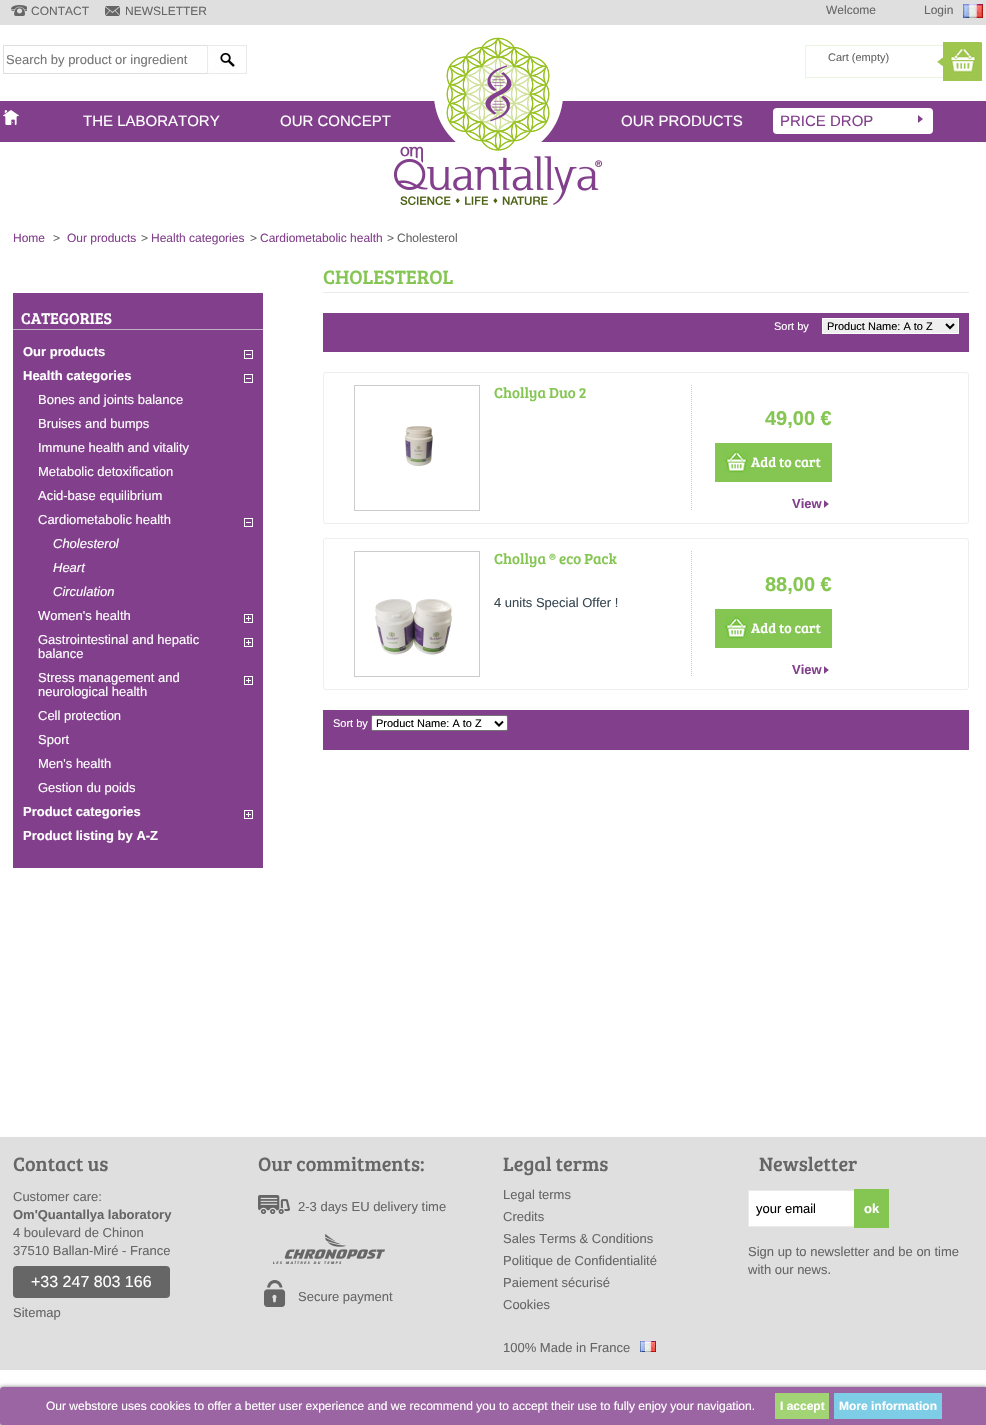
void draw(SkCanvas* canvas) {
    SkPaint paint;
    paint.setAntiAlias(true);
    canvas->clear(0xFFFFFFFF);
    paint.setColor(0xFFDFDFDF);
    canvas->drawRect(SkRect::MakeXYWH(0, 0, 986, 25), paint);
    canvas->drawImageRect(SkImages::DeferredFromEncodedData(SkData::MakeFromFileName("img1.png")), SkRect::MakeXYWH(11, 5, 16, 11), SkSamplingOptions());
    SkFont font1(fontMgr->matchFamilyStyle("Liberation Sans", SkFontStyle::Normal()), 12);
    font1.setSubpixel(true);
    paint.setColor(0xFF666666);
    canvas->drawString("CONTACT", 31, 15, font1, paint);
    canvas->drawImageRect(SkImages::DeferredFromEncodedData(SkData::MakeFromFileName("img2.png")), SkRect::MakeXYWH(105, 6, 15, 10), SkSamplingOptions());
    canvas->drawString("NEWSLETTER", 125, 15, font1, paint);
    canvas->drawString("Welcome", 826, 14, font1, paint);
    canvas->drawString("Login", 924, 14, font1, paint);
    canvas->drawImageRect(SkImages::DeferredFromEncodedData(SkData::MakeFromFileName("img3.png")), SkRect::MakeXYWH(963, 4, 20, 14), SkSamplingOptions());
    paint.setColor(0xFFDFDFDF);
    canvas->drawRect(SkRect::MakeXYWH(3, 45, 205, 1), paint);
    canvas->drawRect(SkRect::MakeXYWH(3, 73, 205, 1), paint);
    canvas->drawRect(SkRect::MakeXYWH(3, 45, 1, 29), paint);
    SkFont font2(fontMgr->matchFamilyStyle("Liberation Sans", SkFontStyle::Normal()), 13);
    font2.setSubpixel(true);
    paint.setColor(0xFF757575);
    canvas->drawString("Search by product or ingredient", 6, 64, font2, paint);
    canvas->drawImageRect(SkImages::DeferredFromEncodedData(SkData::MakeFromFileName("img4.png")), SkRect::MakeXYWH(207, 45, 40, 29), SkSamplingOptions());
    canvas->drawImageRect(SkImages::DeferredFromEncodedData(SkData::MakeFromFileName("img5.png")), SkRect::MakeXYWH(805, 42, 177, 39), SkSamplingOptions());
    SkFont font3(fontMgr->matchFamilyStyle("Liberation Sans", SkFontStyle::Normal()), 11);
    font3.setSubpixel(true);
    paint.setColor(0xFF666666);
    canvas->drawString("Cart (empty)", 828, 61, font3, paint);
    paint.setColor(0xFF823F8C);
    canvas->drawRect(SkRect::MakeXYWH(0, 101, 986, 41), paint);
    canvas->drawImageRect(SkImages::DeferredFromEncodedData(SkData::MakeFromFileName("img9.png")), SkRect::MakeXYWH(394, 146, 208, 59), SkSamplingOptions());
    canvas->drawImageRect(SkImages::DeferredFromEncodedData(SkData::MakeFromFileName("img6.png")), SkRect::MakeXYWH(434, 37, 129, 121), SkSamplingOptions());
    canvas->drawImageRect(SkImages::DeferredFromEncodedData(SkData::MakeFromFileName("img7.png")), SkRect::MakeXYWH(3, 110, 16, 15), SkSamplingOptions());
    SkFont font4(fontMgr->matchFamilyStyle("Liberation Sans", SkFontStyle::Normal()), 15);
    font4.setSubpixel(true);
    paint.setColor(0xFFFFFFFF);
    canvas->drawString("THE LABORATORY", 83, 126, font4, paint);
    canvas->drawString("OUR CONCEPT", 280, 126, font4, paint);
    canvas->drawString("OUR PRODUCTS", 621, 126, font4, paint);
    canvas->drawRoundRect(SkRect::MakeXYWH(773, 108, 160, 26), 4, 4, paint);
    canvas->drawImageRect(SkImages::DeferredFromEncodedData(SkData::MakeFromFileName("img8.png")), SkRect::MakeXYWH(918, 115, 5, 8), SkSamplingOptions());
    paint.setColor(0xFF823F8C);
    canvas->drawString("PRICE DROP", 780, 126, font4, paint);
    paint.setColor(0xFF333333);
    paint.setMaskFilter(SkMaskFilter::MakeBlur(kNormal_SkBlurStyle, 2.5f));
    canvas->drawRoundRect(SkRect::MakeXYWH(0, 1388, 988, 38), 3, 3, paint);
    paint.setMaskFilter(nullptr);
    paint.setColor(0xFF9B65A3);
    canvas->drawRoundRect(SkRect::MakeXYWH(0.5f, 1387.5f, 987, 37), 2.5f, 2.5f, paint);
    paint.setStyle(SkPaint::kStroke_Style);
    paint.setStrokeWidth(1);
    canvas->drawRoundRect(SkRect::MakeXYWH(0.5f, 1387.5f, 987, 37), 2.5f, 2.5f, paint);
    paint.setStyle(SkPaint::kFill_Style);
    paint.setColor(0xFFFFFFFF);
    canvas->drawString("Our webstore uses cookies to offer a better user experience and we recommend you to accept their use to fully enjoy your navigation.", 46, 1410, font1, paint);
    paint.setColor(0xFFA2D476);
    canvas->drawRect(SkRect::MakeXYWH(775, 1393, 54, 26), paint);
    SkFont font5(fontMgr->matchFamilyStyle("Liberation Sans", SkFontStyle::Bold()), 12);
    font5.setSubpixel(true);
    paint.setColor(0xFFFFFFFF);
    canvas->drawString("I accept", 780, 1410, font5, paint);
    paint.setColor(0xFF7CCDE5);
    canvas->drawRect(SkRect::MakeXYWH(834, 1393, 108, 26), paint);
    paint.setColor(0xFFFFFFFF);
    canvas->drawString("More information", 839, 1410, font5, paint);
    paint.setColor(0xFF823F8C);
    canvas->drawString("Home", 13, 242, font1, paint);
    paint.setColor(0xFF666666);
    canvas->drawString(">", 53, 242, font1, paint);
    paint.setColor(0xFF823F8C);
    canvas->drawString("Our products", 67, 242, font1, paint);
    paint.setColor(0xFF666666);
    canvas->drawString(">", 141, 242, font1, paint);
    paint.setColor(0xFF823F8C);
    canvas->drawString("Health categories", 151, 242, font1, paint);
    paint.setColor(0xFF666666);
    canvas->drawString(">", 250, 242, font1, paint);
    paint.setColor(0xFF823F8C);
    canvas->drawString("Cardiometabolic health", 260, 242, font1, paint);
    paint.setColor(0xFF666666);
    canvas->drawString(">", 387, 242, font1, paint);
    canvas->drawString("Cholesterol", 397, 242, font1, paint);
    paint.setColor(0xFF823F8C);
    canvas->drawRect(SkRect::MakeXYWH(13, 293, 250, 575), paint);
    paint.setColor(0xFFC1AFC5);
    canvas->drawRect(SkRect::MakeXYWH(13, 329, 250, 1), paint);
    SkFont font6(fontMgr->matchFamilyStyle("Bree Serif", SkFontStyle::Normal()), 16);
    font6.setSubpixel(true);
    paint.setColor(0xFFFFFFFF);
    canvas->drawString("CATEGORIES", 21, 324, font6, paint);
    SkFont font7(fontMgr->matchFamilyStyle("Liberation Sans", SkFontStyle::Bold()), 13);
    font7.setSubpixel(true);
    canvas->drawString("Our products", 23, 356, font7, paint);
    canvas->drawImageRect(SkImages::DeferredFromEncodedData(SkData::MakeFromFileName("img10.png")), SkRect::MakeXYWH(244, 350, 9, 9), SkSamplingOptions());
    canvas->drawString("Health categories", 23, 380, font7, paint);
    canvas->drawImageRect(SkImages::DeferredFromEncodedData(SkData::MakeFromFileName("img10.png")), SkRect::MakeXYWH(244, 374, 9, 9), SkSamplingOptions());
    canvas->drawString("Bones and joints balance", 38, 404, font2, paint);
    canvas->drawString("Bruises and bumps", 38, 428, font2, paint);
    canvas->drawString("Immune health and vitality", 38, 452, font2, paint);
    canvas->drawString("Metabolic detoxification", 38, 476, font2, paint);
    canvas->drawString("Acid-base equilibrium", 38, 500, font2, paint);
    canvas->drawString("Cardiometabolic health", 38, 524, font2, paint);
    canvas->drawImageRect(SkImages::DeferredFromEncodedData(SkData::MakeFromFileName("img10.png")), SkRect::MakeXYWH(244, 518, 9, 9), SkSamplingOptions());
    SkFont font8(fontMgr->matchFamilyStyle("Liberation Sans", SkFontStyle::Italic()), 13);
    font8.setSubpixel(true);
    canvas->drawString("Cholesterol", 53, 548, font8, paint);
    canvas->drawString("Heart", 53, 572, font8, paint);
    canvas->drawString("Circulation", 53, 596, font8, paint);
    canvas->drawString("Women's health", 38, 620, font2, paint);
    canvas->drawImageRect(SkImages::DeferredFromEncodedData(SkData::MakeFromFileName("img11.png")), SkRect::MakeXYWH(244, 614, 9, 9), SkSamplingOptions());
    canvas->drawString("Gastrointestinal and hepatic", 38, 644, font2, paint);
    canvas->drawString("balance", 38, 658, font2, paint);
    canvas->drawImageRect(SkImages::DeferredFromEncodedData(SkData::MakeFromFileName("img11.png")), SkRect::MakeXYWH(244, 638, 9, 9), SkSamplingOptions());
    canvas->drawString("Stress management and", 38, 682, font2, paint);
    canvas->drawString("neurological health", 38, 696, font2, paint);
    canvas->drawImageRect(SkImages::DeferredFromEncodedData(SkData::MakeFromFileName("img11.png")), SkRect::MakeXYWH(244, 676, 9, 9), SkSamplingOptions());
    canvas->drawString("Cell protection", 38, 720, font2, paint);
    canvas->drawString("Sport", 38, 744, font2, paint);
    canvas->drawString("Men's health", 38, 768, font2, paint);
    canvas->drawString("Gestion du poids", 38, 792, font2, paint);
    canvas->drawString("Product categories", 23, 816, font7, paint);
    canvas->drawImageRect(SkImages::DeferredFromEncodedData(SkData::MakeFromFileName("img11.png")), SkRect::MakeXYWH(244, 810, 9, 9), SkSamplingOptions());
    canvas->drawString("Product listing by A-Z", 23, 840, font7, paint);
    paint.setColor(0xFFEDE9E9);
    canvas->drawRect(SkRect::MakeXYWH(323, 292, 646, 1), paint);
    SkFont font9(fontMgr->matchFamilyStyle("Bree Serif", SkFontStyle::Normal()), 20);
    font9.setSubpixel(true);
    paint.setColor(0xFF85C653);
    canvas->drawString("CHOLESTEROL", 323, 284, font9, paint);
    paint.setColor(0xFF823F8C);
    canvas->drawRect(SkRect::MakeXYWH(323, 313, 646, 39), paint);
    paint.setColor(0xFFFFFFFF);
    canvas->drawString("Sort by", 774, 330, font3, paint);
    paint.setColor(0xFFEFEFEF);
    canvas->drawRect(SkRect::MakeXYWH(822.5f, 318.5f, 136, 15), paint);
    paint.setStyle(SkPaint::kStroke_Style);
    paint.setColor(0xFFFFFFFF);
    canvas->drawRect(SkRect::MakeXYWH(822.5f, 318.5f, 136, 15), paint);
    paint.setStrokeWidth(2);
    paint.setColor(0xFF000000);
    canvas->drawPath(SkPathBuilder().moveTo(946, 324).lineTo(950, 328).lineTo(954, 324).detach(), paint);
    paint.setStyle(SkPaint::kFill_Style);
    canvas->drawString("Product Name: A to Z", 827, 330, font3, paint);
    paint.setStyle(SkPaint::kStroke_Style);
    paint.setStrokeWidth(1);
    paint.setColor(0xFFEEEEEE);
    canvas->drawRoundRect(SkRect::MakeXYWH(323.5f, 372.5f, 645, 151), 2.5f, 2.5f, paint);
    paint.setColor(0xFFCCCCCC);
    paint.setPathEffect(SkDashPathEffect::Make({{1, 1}}, 0));
    canvas->drawPath(SkPathBuilder().moveTo(691.5f, 385).lineTo(691.5f, 511).detach(), paint);
    paint.setPathEffect(nullptr);
    canvas->drawRect(SkRect::MakeXYWH(354.5f, 385.5f, 125, 125), paint);
    canvas->drawImageRect(SkImages::DeferredFromEncodedData(SkData::MakeFromFileName("img12.png")), SkRect::MakeXYWH(405, 426, 28, 40), SkSamplingOptions());
    SkFont font10(fontMgr->matchFamilyStyle("Bree Serif", SkFontStyle::Normal()), 15);
    font10.setSubpixel(true);
    paint.setStyle(SkPaint::kFill_Style);
    paint.setColor(0xFF85C653);
    canvas->drawString("Chollya Duo 2", 494, 398, font10, paint);
    SkFont font11(fontMgr->matchFamilyStyle("Liberation Sans", SkFontStyle::Bold()), 20);
    font11.setSubpixel(true);
    canvas->drawString("49,00 €", 765, 425, font11, paint);
    canvas->drawRect(SkRect::MakeXYWH(715, 443, 117, 39), paint);
    canvas->drawImageRect(SkImages::DeferredFromEncodedData(SkData::MakeFromFileName("img13.png")), SkRect::MakeXYWH(724, 450, 25, 23), SkSamplingOptions());
    SkFont font12(fontMgr->matchFamilyStyle("Bree Serif", SkFontStyle::Normal()), 14);
    font12.setSubpixel(true);
    paint.setColor(0xFFFFFFFF);
    canvas->drawString("Add to cart", 751, 467, font12, paint);
    canvas->drawImageRect(SkImages::DeferredFromEncodedData(SkData::MakeFromFileName("img14.png")), SkRect::MakeXYWH(824, 500, 5, 8), SkSamplingOptions());
    paint.setColor(0xFF823F8C);
    canvas->drawString("View", 792, 508, font7, paint);
    paint.setStyle(SkPaint::kStroke_Style);
    paint.setColor(0xFFEEEEEE);
    canvas->drawRoundRect(SkRect::MakeXYWH(323.5f, 538.5f, 645, 151), 2.5f, 2.5f, paint);
    paint.setColor(0xFFCCCCCC);
    paint.setPathEffect(SkDashPathEffect::Make({{1, 1}}, 0));
    canvas->drawPath(SkPathBuilder().moveTo(691.5f, 551).lineTo(691.5f, 677).detach(), paint);
    paint.setPathEffect(nullptr);
    canvas->drawRect(SkRect::MakeXYWH(354.5f, 551.5f, 125, 125), paint);
    canvas->drawImageRect(SkImages::DeferredFromEncodedData(SkData::MakeFromFileName("img15.png")), SkRect::MakeXYWH(375, 599, 77, 56), SkSamplingOptions());
    paint.setStyle(SkPaint::kFill_Style);
    paint.setColor(0xFF85C653);
    canvas->drawString("Chollya ® eco Pack", 494, 564, font10, paint);
    paint.setColor(0xFF374853);
    canvas->drawString("4 units Special Offer !", 494, 607, font2, paint);
    paint.setColor(0xFF85C653);
    canvas->drawString("88,00 €", 765, 591, font11, paint);
    canvas->drawRect(SkRect::MakeXYWH(715, 609, 117, 39), paint);
    canvas->drawImageRect(SkImages::DeferredFromEncodedData(SkData::MakeFromFileName("img13.png")), SkRect::MakeXYWH(724, 616, 25, 23), SkSamplingOptions());
    paint.setColor(0xFFFFFFFF);
    canvas->drawString("Add to cart", 751, 633, font12, paint);
    canvas->drawImageRect(SkImages::DeferredFromEncodedData(SkData::MakeFromFileName("img14.png")), SkRect::MakeXYWH(824, 666, 5, 8), SkSamplingOptions());
    paint.setColor(0xFF823F8C);
    canvas->drawString("View", 792, 674, font7, paint);
    canvas->drawRect(SkRect::MakeXYWH(323, 710, 646, 40), paint);
    paint.setColor(0xFFFFFFFF);
    canvas->drawString("Sort by", 333, 727, font3, paint);
    canvas->drawRoundRect(SkRect::MakeXYWH(371.5f, 715.5f, 136, 15), 1.5f, 1.5f, paint);
    paint.setStyle(SkPaint::kStroke_Style);
    paint.setColor(0xFF767676);
    canvas->drawRoundRect(SkRect::MakeXYWH(371.5f, 715.5f, 136, 15), 1.5f, 1.5f, paint);
    paint.setStrokeWidth(2);
    paint.setColor(0xFF000000);
    canvas->drawPath(SkPathBuilder().moveTo(495, 721.5f).lineTo(499, 725.5f).lineTo(503, 721.5f).detach(), paint);
    paint.setStyle(SkPaint::kFill_Style);
    canvas->drawString("Product Name: A to Z", 376, 727, font3, paint);
    paint.setColor(0xFFDFDFDF);
    canvas->drawRect(SkRect::MakeXYWH(0, 1137, 986, 233), paint);
    paint.setColor(0xFF666666);
    canvas->drawString("Contact us", 13, 1171, font9, paint);
    canvas->drawString("Customer care:", 13, 1201, font2, paint);
    canvas->drawString("Om'Quantallya laboratory", 13, 1219, font7, paint);
    canvas->drawString("4 boulevard de Chinon", 13, 1237, font2, paint);
    canvas->drawString("37510 Ballan-Miré - France", 13, 1255, font2, paint);
    canvas->drawRoundRect(SkRect::MakeXYWH(13, 1266, 157, 32), 4, 4, paint);
    SkFont font13(fontMgr->matchFamilyStyle("Liberation Sans", SkFontStyle::Normal()), 16);
    font13.setSubpixel(true);
    paint.setColor(0xFFFFFFFF);
    canvas->drawString("+33 247 803 166", 31, 1287, font13, paint);
    paint.setColor(0xFF666666);
    canvas->drawString("Sitemap", 13, 1317, font2, paint);
    canvas->drawString("Our commitments:", 258, 1171, font9, paint);
    canvas->drawImageRect(SkImages::DeferredFromEncodedData(SkData::MakeFromFileName("img16.png")), SkRect::MakeXYWH(258, 1195, 32, 19), SkSamplingOptions());
    canvas->drawString("2-3 days EU delivery time", 298, 1211, font2, paint);
    canvas->drawImageRect(SkImages::DeferredFromEncodedData(SkData::MakeFromFileName("img17.png")), SkRect::MakeXYWH(273, 1234, 112, 30), SkSamplingOptions());
    canvas->drawImageRect(SkImages::DeferredFromEncodedData(SkData::MakeFromFileName("img18.png")), SkRect::MakeXYWH(264, 1280, 22, 27), SkSamplingOptions());
    canvas->drawString("Secure payment", 298, 1301, font2, paint);
    canvas->drawString("Legal terms", 503, 1171, font9, paint);
    canvas->drawString("Legal terms", 503, 1199, font2, paint);
    canvas->drawString("Credits", 503, 1221, font2, paint);
    canvas->drawString("Sales Terms & Conditions", 503, 1243, font2, paint);
    canvas->drawString("Politique de Confidentialité", 503, 1265, font2, paint);
    canvas->drawString("Paiement sécurisé", 503, 1287, font2, paint);
    canvas->drawString("Cookies", 503, 1309, font2, paint);
    canvas->drawString("100% Made in France", 503, 1352, font2, paint);
    canvas->drawImageRect(SkImages::DeferredFromEncodedData(SkData::MakeFromFileName("img19.png")), SkRect::MakeXYWH(640, 1341, 16, 11), SkSamplingOptions());
    canvas->drawString("Newsletter", 759, 1171, font9, paint);
    paint.setColor(0xFFFFFFFF);
    canvas->drawRect(SkRect::MakeXYWH(749, 1191, 105, 35), paint);
    paint.setStyle(SkPaint::kStroke_Style);
    paint.setStrokeWidth(1);
    paint.setColor(0xFFEDE9E9);
    canvas->drawRect(SkRect::MakeXYWH(748.5f, 1190.5f, 111, 36), paint);
    paint.setStyle(SkPaint::kFill_Style);
    paint.setColor(0xFF000000);
    canvas->drawString("your email", 756, 1213, font2, paint);
    paint.setColor(0xFF85C653);
    canvas->drawRect(SkRect::MakeXYWH(854, 1189, 35, 39), paint);
    paint.setColor(0xFFFFFFFF);
    canvas->drawString("ok", 864, 1213, font7, paint);
    paint.setColor(0xFF666666);
    canvas->drawString("Sign up to newsletter and be on time", 748, 1256, font2, paint);
    canvas->drawString("with our news.", 748, 1274, font2, paint);
}
